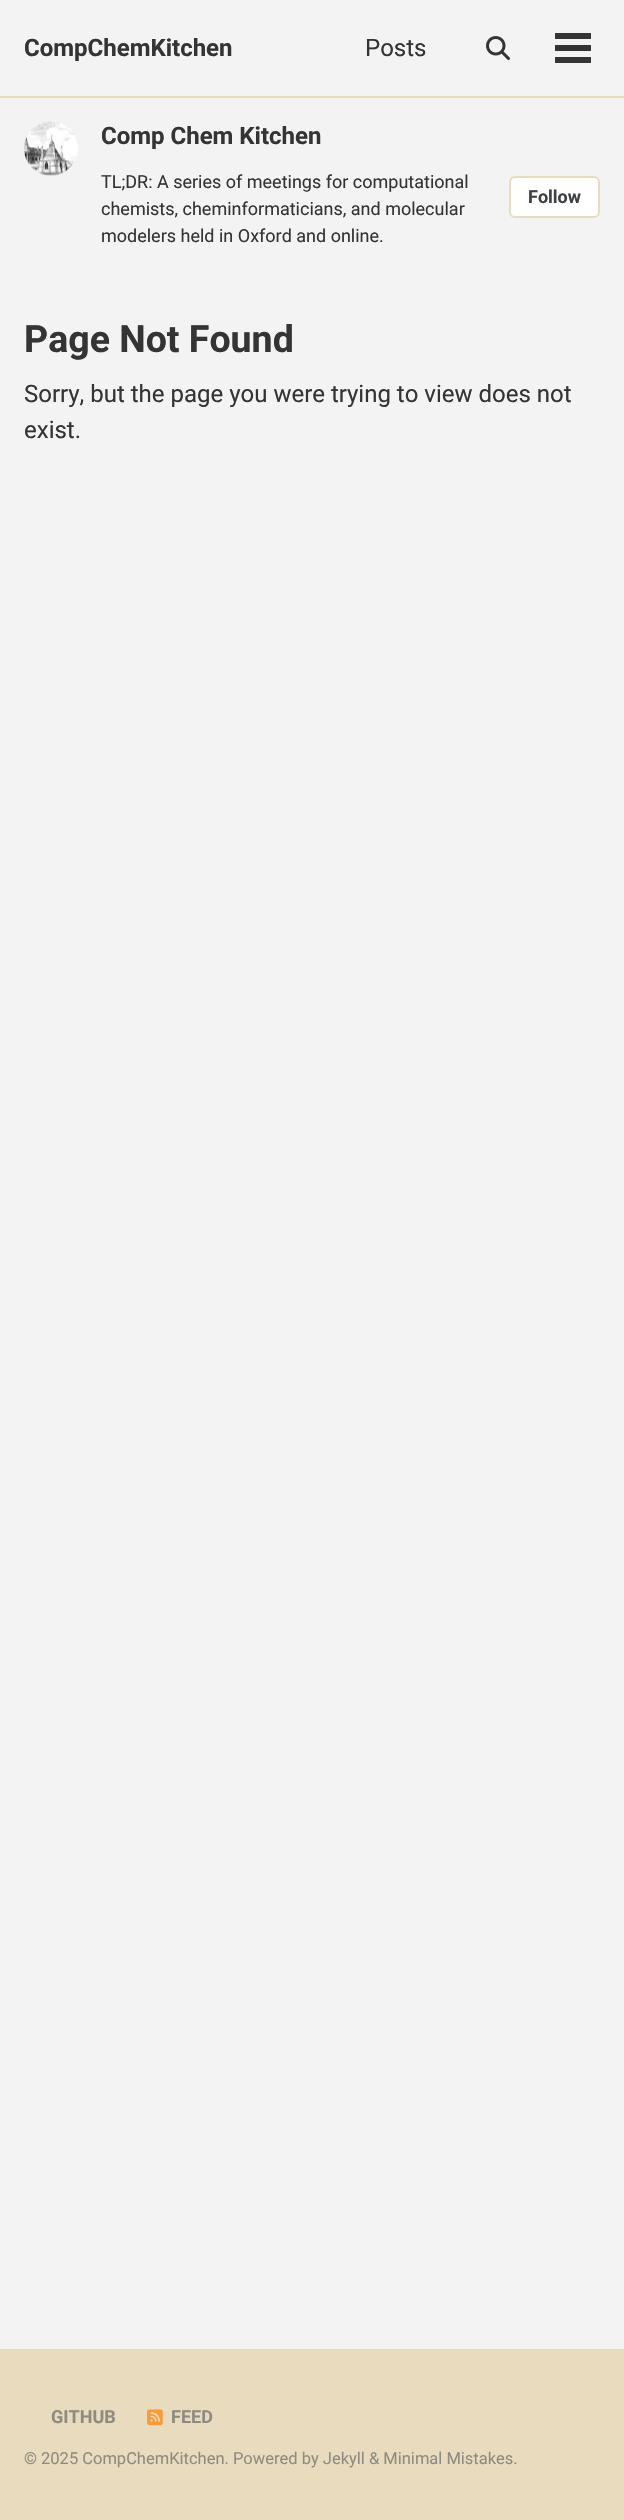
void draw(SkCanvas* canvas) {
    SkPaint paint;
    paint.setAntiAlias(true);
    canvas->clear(0xFFF3F3F3);
    paint.setColor(0xFFE9DCBE);
    canvas->drawRect(SkRect::MakeXYWH(0, 96, 624, 2), paint);
    SkFont font1(fontMgr->matchFamilyStyle("Roboto", SkFontStyle::Bold()), 24);
    font1.setSubpixel(true);
    paint.setColor(0xFF343434);
    canvas->drawString("CompChemKitchen", 24, 56, font1, paint);
    SkFont font2(fontMgr->matchFamilyStyle("Roboto", SkFontStyle::Normal()), 24);
    font2.setSubpixel(true);
    canvas->drawString("Posts", 365, 56, font2, paint);
    canvas->drawImageRect(SkImages::DeferredFromEncodedData(SkData::MakeFromFileName("img1.png")), SkRect::MakeXYWH(486, 36, 24, 24), SkSamplingOptions());
    canvas->drawRect(SkRect::MakeXYWH(555, 45, 36, 6), paint);
    canvas->drawRect(SkRect::MakeXYWH(555, 33, 36, 6), paint);
    canvas->drawRect(SkRect::MakeXYWH(555, 57, 36, 6), paint);
    canvas->drawImageRect(SkImages::DeferredFromEncodedData(SkData::MakeFromFileName("img2.png")), SkRect::MakeXYWH(24, 121, 54, 55), SkSamplingOptions());
    canvas->drawString("Comp Chem Kitchen", 101, 144, font1, paint);
    SkFont font3(fontMgr->matchFamilyStyle("Roboto", SkFontStyle::Normal()), 18);
    font3.setSubpixel(true);
    canvas->drawString("TL;DR: A series of meetings for computational", 101, 188, font3, paint);
    canvas->drawString("chemists, cheminformaticians, and molecular", 101, 215, font3, paint);
    canvas->drawString("modelers held in Oxford and online.", 101, 242, font3, paint);
    paint.setColor(0xFFFFFFFF);
    canvas->drawRoundRect(SkRect::MakeXYWH(510, 177, 89, 40), 5, 5, paint);
    paint.setStyle(SkPaint::kStroke_Style);
    paint.setStrokeWidth(2);
    paint.setColor(0xFFE9DCBE);
    canvas->drawRoundRect(SkRect::MakeXYWH(510, 177, 89, 40), 5, 5, paint);
    SkFont font4(fontMgr->matchFamilyStyle("Roboto", SkFontStyle::Bold()), 18);
    font4.setSubpixel(true);
    paint.setStyle(SkPaint::kFill_Style);
    paint.setColor(0xFF3D4144);
    canvas->drawString("Follow", 528, 203, font4, paint);
    SkFont font5(fontMgr->matchFamilyStyle("Roboto", SkFontStyle::Bold()), 37.5f);
    font5.setSubpixel(true);
    paint.setColor(0xFF343434);
    canvas->drawString("Page Not Found", 24, 352, font5, paint);
    canvas->drawString("Sorry, but the page you were trying to view does not", 24, 402, font2, paint);
    canvas->drawString("exist.", 24, 438, font2, paint);
    paint.setColor(0xFFE9DCBE);
    canvas->drawRect(SkRect::MakeXYWH(0, 2349, 624, 171), paint);
    paint.setColor(0xFF8E8B82);
    canvas->drawString("GITHUB", 51, 2423, font4, paint);
    canvas->drawImageRect(SkImages::DeferredFromEncodedData(SkData::MakeFromFileName("img3.png")), SkRect::MakeXYWH(147, 2409, 16, 17), SkSamplingOptions());
    canvas->drawString("FEED", 171, 2423, font4, paint);
    SkFont font6(fontMgr->matchFamilyStyle("Roboto", SkFontStyle::Normal()), 16.5f);
    font6.setSubpixel(true);
    canvas->drawString("© 2025 CompChemKitchen. Powered by Jekyll & Minimal Mistakes.", 24, 2464, font6, paint);
}
